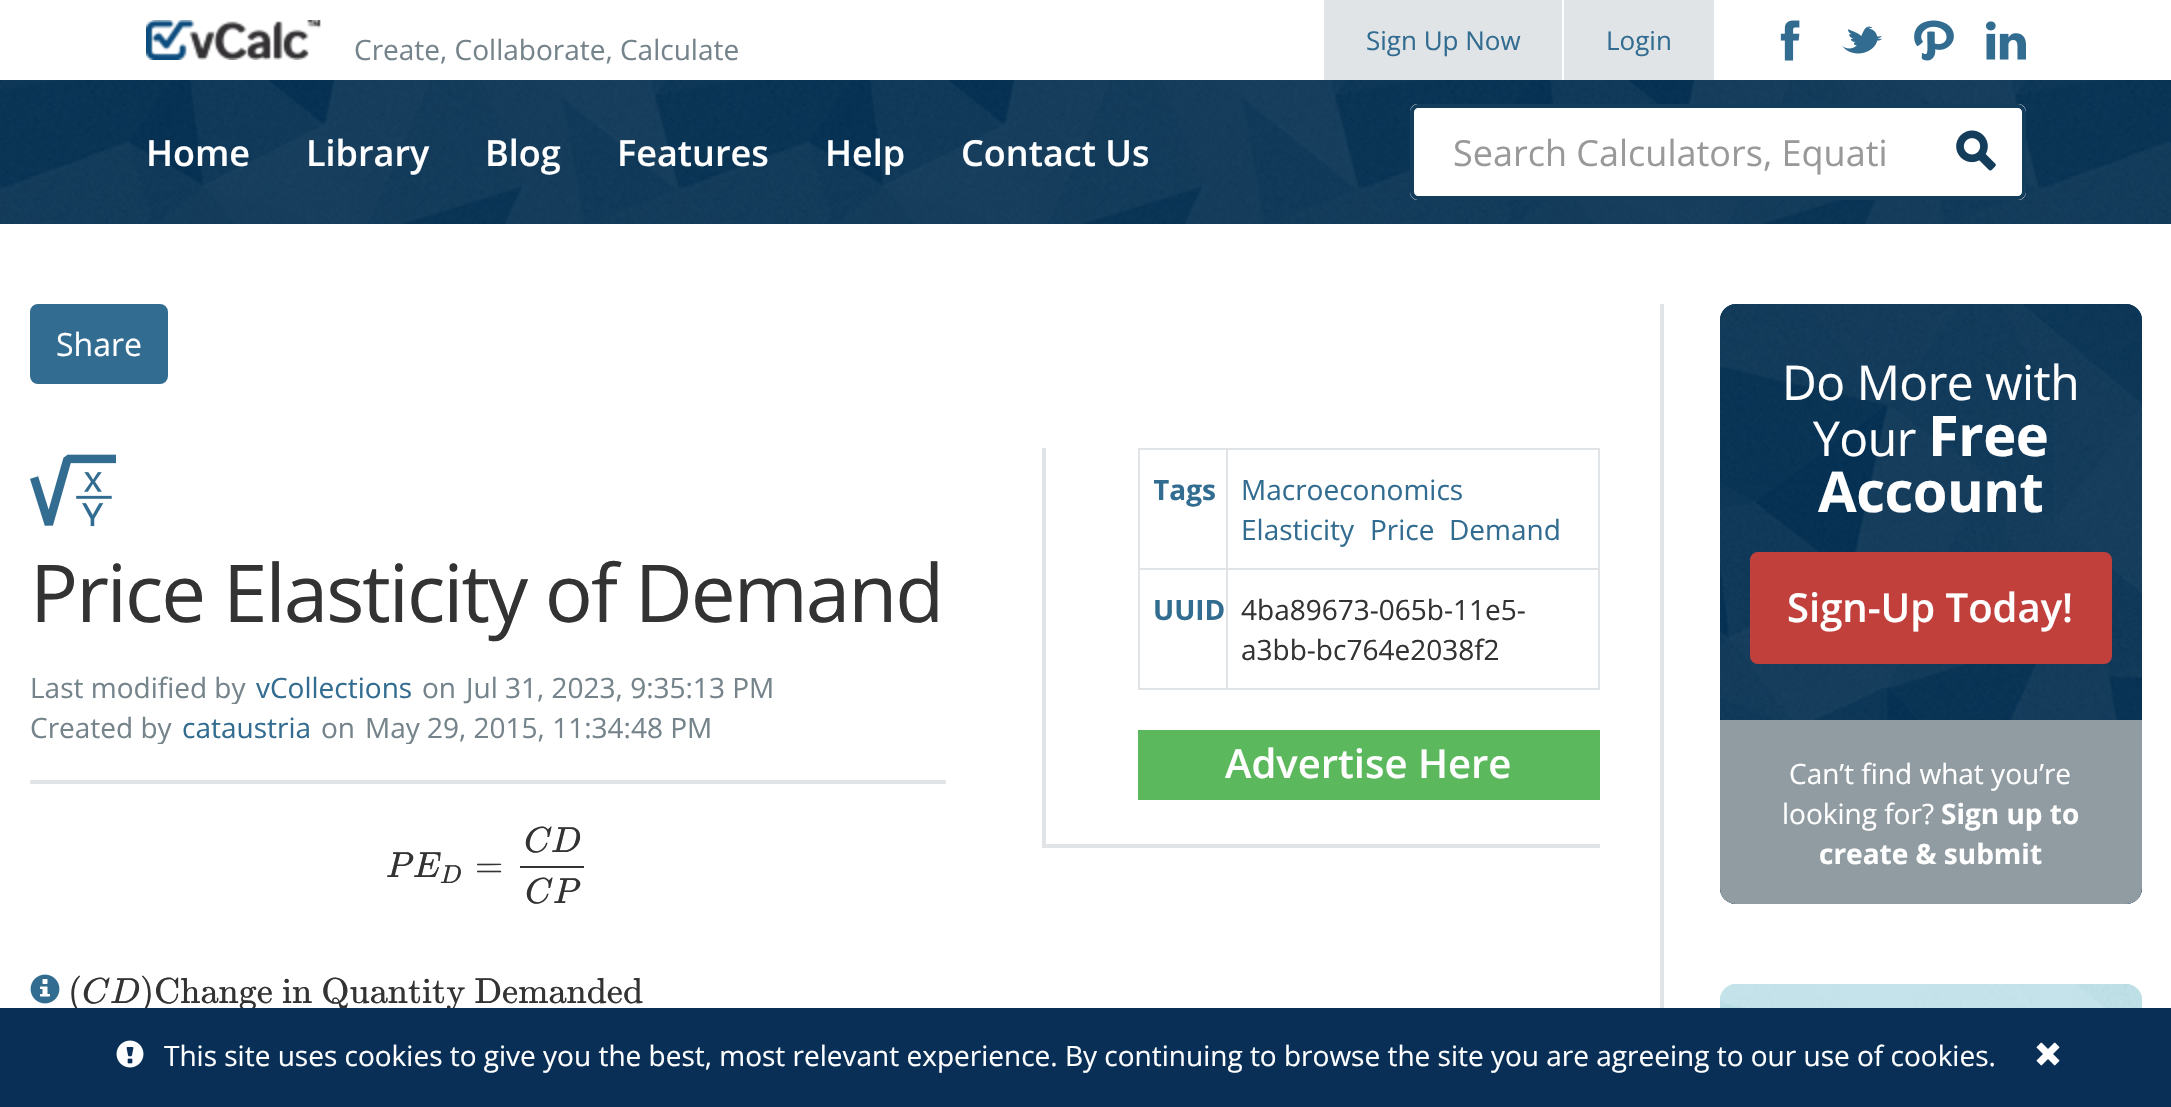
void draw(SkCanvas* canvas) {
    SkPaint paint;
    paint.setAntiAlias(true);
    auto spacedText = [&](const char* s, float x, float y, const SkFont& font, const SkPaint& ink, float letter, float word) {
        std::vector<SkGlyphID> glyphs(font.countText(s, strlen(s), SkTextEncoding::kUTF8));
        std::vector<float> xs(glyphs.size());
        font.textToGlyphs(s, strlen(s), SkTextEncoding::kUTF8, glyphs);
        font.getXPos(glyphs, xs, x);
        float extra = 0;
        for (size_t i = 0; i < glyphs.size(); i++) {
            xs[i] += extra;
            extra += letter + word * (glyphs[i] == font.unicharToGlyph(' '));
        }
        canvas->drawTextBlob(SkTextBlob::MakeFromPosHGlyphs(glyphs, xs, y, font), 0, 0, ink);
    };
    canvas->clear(0xFFFFFFFF);
    canvas->drawImageRect(SkImages::DeferredFromEncodedData(SkData::MakeFromFileName("img1.png")), SkRect::MakeXYWH(146, 20, 175, 40), SkSamplingOptions());
    SkFont font1(fontMgr->matchFamilyStyle("Open Sans", SkFontStyle::Normal()), 28);
    font1.setSubpixel(true);
    paint.setColor(0xFF75838B);
    canvas->drawString("Create, Collaborate, Calculate", 354, 60, font1, paint);
    paint.setColor(0xFFE0E4E7);
    canvas->drawRect(SkRect::MakeXYWH(1324, 0, 238, 80), paint);
    SkFont font2(fontMgr->matchFamilyStyle("Open Sans", SkFontStyle::Normal()), 26);
    font2.setSubpixel(true);
    paint.setColor(0xFF326C90);
    canvas->drawString("Sign Up Now", 1366, 50, font2, paint);
    paint.setColor(0xFFE0E4E7);
    canvas->drawRect(SkRect::MakeXYWH(1564, 0, 150, 80), paint);
    paint.setColor(0xFF326C90);
    canvas->drawString("Login", 1606, 50, font2, paint);
    canvas->drawImageRect(SkImages::DeferredFromEncodedData(SkData::MakeFromFileName("img2.png")), SkRect::MakeXYWH(1780, 20, 20, 41), SkSamplingOptions());
    canvas->drawImageRect(SkImages::DeferredFromEncodedData(SkData::MakeFromFileName("img3.png")), SkRect::MakeXYWH(1842, 26, 40, 28), SkSamplingOptions());
    canvas->drawImageRect(SkImages::DeferredFromEncodedData(SkData::MakeFromFileName("img4.png")), SkRect::MakeXYWH(1914, 20, 40, 41), SkSamplingOptions());
    canvas->drawImageRect(SkImages::DeferredFromEncodedData(SkData::MakeFromFileName("img5.png")), SkRect::MakeXYWH(1986, 21, 40, 39), SkSamplingOptions());
    canvas->drawImageRect(SkImages::DeferredFromEncodedData(SkData::MakeFromFileName("img6.png")), SkRect::MakeXYWH(0, 80, 2171, 144), SkSamplingOptions());
    SkFont font3(fontMgr->matchFamilyStyle("Open Sans", SkFontStyle(600, SkFontStyle::kNormal_Width, SkFontStyle::kUpright_Slant)), 36);
    font3.setSubpixel(true);
    paint.setColor(0xFFFFFFFF);
    canvas->drawString("Home", 146, 166, font3, paint);
    canvas->drawString("Library", 306, 166, font3, paint);
    canvas->drawString("Blog", 485, 166, font3, paint);
    canvas->drawString("Features", 617, 166, font3, paint);
    canvas->drawString("Help", 825, 166, font3, paint);
    canvas->drawString("Contact Us", 961, 166, font3, paint);
    canvas->drawPath(SkPathBuilder().moveTo(1930, 104).lineTo(2018, 104).cubicTo(2022.5f, 104, 2026, 107.5f, 2026, 112).lineTo(2026, 192).cubicTo(2026, 196.5f, 2022.5f, 200, 2018, 200).lineTo(1930, 200).close().detach(), paint);
    paint.setColor(0xFF143C5B);
    canvas->drawPath(SkPathBuilder(SkPathFillType::kEvenOdd).moveTo(1930, 104).lineTo(2018, 104).cubicTo(2022, 104, 2026, 108, 2026, 112).lineTo(2026, 192).cubicTo(2026, 196, 2022, 200, 2018, 200).lineTo(1930, 200).close().moveTo(1930, 108).lineTo(2018, 108).cubicTo(2020, 108, 2022, 110, 2022, 112).lineTo(2022, 192).cubicTo(2022, 194, 2020, 196, 2018, 196).lineTo(1930, 196).close().detach(), paint);
    paint.setColor(0xFFFFFFFF);
    canvas->drawPath(SkPathBuilder().moveTo(1418, 104).lineTo(1932, 104).lineTo(1932, 200).lineTo(1418, 200).cubicTo(1413.5f, 200, 1410, 196.5f, 1410, 192).lineTo(1410, 112).cubicTo(1410, 107.5f, 1413.5f, 104, 1418, 104).close().detach(), paint);
    paint.setColor(0xFF143C5B);
    canvas->drawPath(SkPathBuilder(SkPathFillType::kEvenOdd).moveTo(1418, 104).lineTo(1932, 104).lineTo(1932, 200).lineTo(1418, 200).cubicTo(1414, 200, 1410, 196, 1410, 192).lineTo(1410, 112).cubicTo(1410, 108, 1414, 104, 1418, 104).close().moveTo(1418, 108).lineTo(1932, 108).lineTo(1932, 196).lineTo(1418, 196).cubicTo(1416, 196, 1414, 194, 1414, 192).lineTo(1414, 112).cubicTo(1414, 110, 1416, 108, 1418, 108).close().detach(), paint);
    SkFont font4(fontMgr->matchFamilyStyle("Open Sans", SkFontStyle::Normal()), 36);
    font4.setSubpixel(true);
    paint.setColor(0xFF999999);
    canvas->drawString("Search Calculators, Equati", 1453, 166, font4, paint);
    canvas->drawImageRect(SkImages::DeferredFromEncodedData(SkData::MakeFromFileName("img7.png")), SkRect::MakeXYWH(1956, 130, 40, 41), SkSamplingOptions());
    paint.setColor(0xFF326C90);
    canvas->drawRoundRect(SkRect::MakeXYWH(31, 305, 136, 78), 7, 7, paint);
    paint.setStyle(SkPaint::kStroke_Style);
    paint.setStrokeWidth(2);
    canvas->drawRoundRect(SkRect::MakeXYWH(31, 305, 136, 78), 7, 7, paint);
    SkFont font5(fontMgr->matchFamilyStyle("Open Sans", SkFontStyle::Normal()), 32);
    font5.setSubpixel(true);
    paint.setStyle(SkPaint::kFill_Style);
    paint.setColor(0xFFFFFFFF);
    canvas->drawString("Share", 56, 356, font5, paint);
    canvas->drawImageRect(SkImages::DeferredFromEncodedData(SkData::MakeFromFileName("img8.png")), SkRect::MakeXYWH(30, 454, 86, 73), SkSamplingOptions());
    SkFont font6(fontMgr->matchFamilyStyle("Open Sans", SkFontStyle::Normal()), 80);
    font6.setSubpixel(true);
    paint.setColor(0xFF333333);
    spacedText("Price Elasticity of Demand", 30, 622, font6, paint, -2, 0);
    paint.setColor(0xFFE0E4E7);
    canvas->drawRect(SkRect::MakeXYWH(30, 780, 916, 4), paint);
    canvas->save();
    canvas->clipRect(SkRect::MakeXYWH(30, 672, 916, 32));
    paint.setColor(0xFF75838B);
    canvas->drawString("Last modified by", 30, 698, font1, paint);
    canvas->restore();
    paint.setColor(0xFF326C90);
    canvas->drawString("vCollections", 256, 698, font1, paint);
    paint.setColor(0xFF75838B);
    canvas->drawString("on", 422, 698, font1, paint);
    canvas->drawString("Jul 31, 2023, 9:35:13 PM", 466, 698, font1, paint);
    canvas->save();
    canvas->clipRect(SkRect::MakeXYWH(30, 712, 916, 32));
    canvas->drawString("Created by", 30, 738, font1, paint);
    canvas->restore();
    paint.setColor(0xFF326C90);
    canvas->drawString("cataustria", 182, 738, font1, paint);
    paint.setColor(0xFF75838B);
    canvas->drawString("on", 321, 738, font1, paint);
    canvas->save();
    canvas->clipRect(SkRect::MakeXYWH(30, 712, 916, 32));
    canvas->drawString("May 29, 2015, 11:34:48 PM", 365, 738, font1, paint);
    canvas->restore();
    SkFont font7(fontMgr->matchFamilyStyle("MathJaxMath", SkFontStyle::Italic()), 36.25f);
    font7.setSubpixel(true);
    paint.setColor(0xFF333333);
    canvas->drawString("P", 386, 877, font7, paint);
    canvas->drawString("E", 413, 877, font7, paint);
    SkFont font8(fontMgr->matchFamilyStyle("MathJaxMath", SkFontStyle::Italic()), 26);
    font8.setSubpixel(true);
    canvas->drawString("D", 440, 883, font8, paint);
    SkFont font9(fontMgr->matchFamilyStyle("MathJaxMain", SkFontStyle::Normal()), 36.25f);
    font9.setSubpixel(true);
    canvas->drawString("=", 475, 877, font9, paint);
    canvas->drawString("C", 524, 852, font7, paint);
    canvas->drawString("D", 551, 852, font7, paint);
    canvas->drawRect(SkRect::MakeXYWH(520, 866, 64, 2), paint);
    canvas->drawString("C", 525, 903, font7, paint);
    canvas->drawString("P", 553, 903, font7, paint);
    canvas->drawImageRect(SkImages::DeferredFromEncodedData(SkData::MakeFromFileName("img9.png")), SkRect::MakeXYWH(30, 974, 30, 30), SkSamplingOptions());
    canvas->drawString("(", 68, 1003, font9, paint);
    canvas->drawString("C", 82, 1003, font7, paint);
    canvas->drawString("D", 110, 1003, font7, paint);
    canvas->drawString(")Change in Quantity Demanded", 140, 1003, font9, paint);
    paint.setColor(0xFFE0E4E7);
    canvas->drawRect(SkRect::MakeXYWH(1042, 844, 558, 4), paint);
    canvas->drawRect(SkRect::MakeXYWH(1042, 448, 4, 400), paint);
    canvas->drawRect(SkRect::MakeXYWH(1228, 448, 372, 2), paint);
    canvas->drawRect(SkRect::MakeXYWH(1598, 448, 2, 242), paint);
    canvas->drawRect(SkRect::MakeXYWH(1138, 688, 462, 2), paint);
    canvas->drawRect(SkRect::MakeXYWH(1138, 448, 2, 242), paint);
    canvas->drawRect(SkRect::MakeXYWH(1138, 448, 90, 2), paint);
    canvas->drawRect(SkRect::MakeXYWH(1138, 568, 462, 2), paint);
    canvas->drawRect(SkRect::MakeXYWH(1226, 568, 2, 122), paint);
    canvas->drawRect(SkRect::MakeXYWH(1226, 448, 2, 122), paint);
    canvas->save();
    canvas->clipRect(SkRect::MakeXYWH(1154, 470, 70, 40));
    SkFont font10(fontMgr->matchFamilyStyle("Open Sans", SkFontStyle::Bold()), 28);
    font10.setSubpixel(true);
    paint.setColor(0xFF326C90);
    canvas->drawString("Tags", 1153, 500, font10, paint);
    canvas->restore();
    canvas->drawString("Macroeconomics", 1241, 500, font1, paint);
    canvas->drawString("Elasticity", 1241, 540, font1, paint);
    canvas->drawString("Price", 1370, 540, font1, paint);
    canvas->drawString("Demand", 1449, 540, font1, paint);
    canvas->drawString("UUID", 1153, 620, font10, paint);
    paint.setColor(0xFF333333);
    canvas->drawString("4ba89673-065b-11e5-", 1241, 620, font1, paint);
    canvas->drawString("a3bb-bc764e2038f2", 1241, 660, font1, paint);
    paint.setColor(0xFF5CB85C);
    canvas->drawRect(SkRect::MakeXYWH(1138, 730, 462, 70), paint);
    SkFont font11(fontMgr->matchFamilyStyle("Open Sans", SkFontStyle(600, SkFontStyle::kNormal_Width, SkFontStyle::kUpright_Slant)), 40);
    font11.setSubpixel(true);
    paint.setColor(0xFFFFFFFF);
    canvas->drawString("Advertise Here", 1225, 778, font11, paint);
    paint.setColor(0xFFE0E4E7);
    canvas->drawRect(SkRect::MakeXYWH(1660, 304, 4, 704), paint);
    paint.setColor(0xFF143C5B);
    canvas->drawRoundRect(SkRect::MakeXYWH(1720, 304, 422, 600), 16, 16, paint);
    canvas->drawImageRect(SkImages::DeferredFromEncodedData(SkData::MakeFromFileName("img10.png")), SkRect::MakeXYWH(1720, 304, 422, 600), SkSamplingOptions());
    SkFont font12(fontMgr->matchFamilyStyle("Open Sans", SkFontStyle::Normal()), 48);
    font12.setSubpixel(true);
    paint.setColor(0xFFFFFFFF);
    spacedText("Do More with", 1782, 400, font12, paint, -0.5f, 0);
    spacedText("Your", 1813, 456, font12, paint, -0.5f, 0);
    SkFont font13(fontMgr->matchFamilyStyle("Open Sans", SkFontStyle::Bold()), 56);
    font13.setSubpixel(true);
    spacedText("Free", 1928, 456, font13, paint, -0.5f, 0);
    spacedText("Account", 1818, 512, font13, paint, -0.5f, 0);
    paint.setColor(0xFFC2403B);
    canvas->drawRoundRect(SkRect::MakeXYWH(1751, 553, 360, 110), 7, 7, paint);
    paint.setStyle(SkPaint::kStroke_Style);
    canvas->drawRoundRect(SkRect::MakeXYWH(1751, 553, 360, 110), 7, 7, paint);
    paint.setStyle(SkPaint::kFill_Style);
    paint.setColor(0xFFFFFFFF);
    canvas->drawString("Sign-Up Today!", 1787, 622, font11, paint);
    paint.setColor(0xFF919CA2);
    canvas->drawPath(SkPathBuilder().moveTo(1720, 720).lineTo(2142, 720).lineTo(2142, 888).cubicTo(2142, 897, 2135, 904, 2126, 904).lineTo(1736, 904).cubicTo(1727, 904, 1720, 897, 1720, 888).close().detach(), paint);
    paint.setColor(0xFFFFFFFF);
    canvas->drawString("Can’t find what you’re", 1789, 784, font1, paint);
    canvas->drawString("looking for?", 1782, 824, font1, paint);
    canvas->drawString("Sign up to", 1941, 824, font10, paint);
    canvas->drawString("create & submit", 1819, 864, font10, paint);
    paint.setColor(0xFFC2E2E9);
    canvas->drawRoundRect(SkRect::MakeXYWH(1720, 984, 422, 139), 16, 16, paint);
    canvas->drawImageRect(SkImages::DeferredFromEncodedData(SkData::MakeFromFileName("img11.png")), SkRect::MakeXYWH(1720, 984, 422, 24), SkSamplingOptions());
    paint.setColor(0xFF092F57);
    canvas->drawRect(SkRect::MakeXYWH(0, 1008, 2171, 99), paint);
    canvas->drawImageRect(SkImages::DeferredFromEncodedData(SkData::MakeFromFileName("img12.png")), SkRect::MakeXYWH(116, 1040, 28, 28), SkSamplingOptions());
    paint.setColor(0xFFFFFFFF);
    canvas->drawString("This site uses cookies to give you the best, most relevant experience. By continuing to browse the site you are agreeing to our use of cookies.", 164, 1066, font1, paint);
    canvas->drawImageRect(SkImages::DeferredFromEncodedData(SkData::MakeFromFileName("img13.png")), SkRect::MakeXYWH(2036, 1042, 24, 24), SkSamplingOptions());
}
